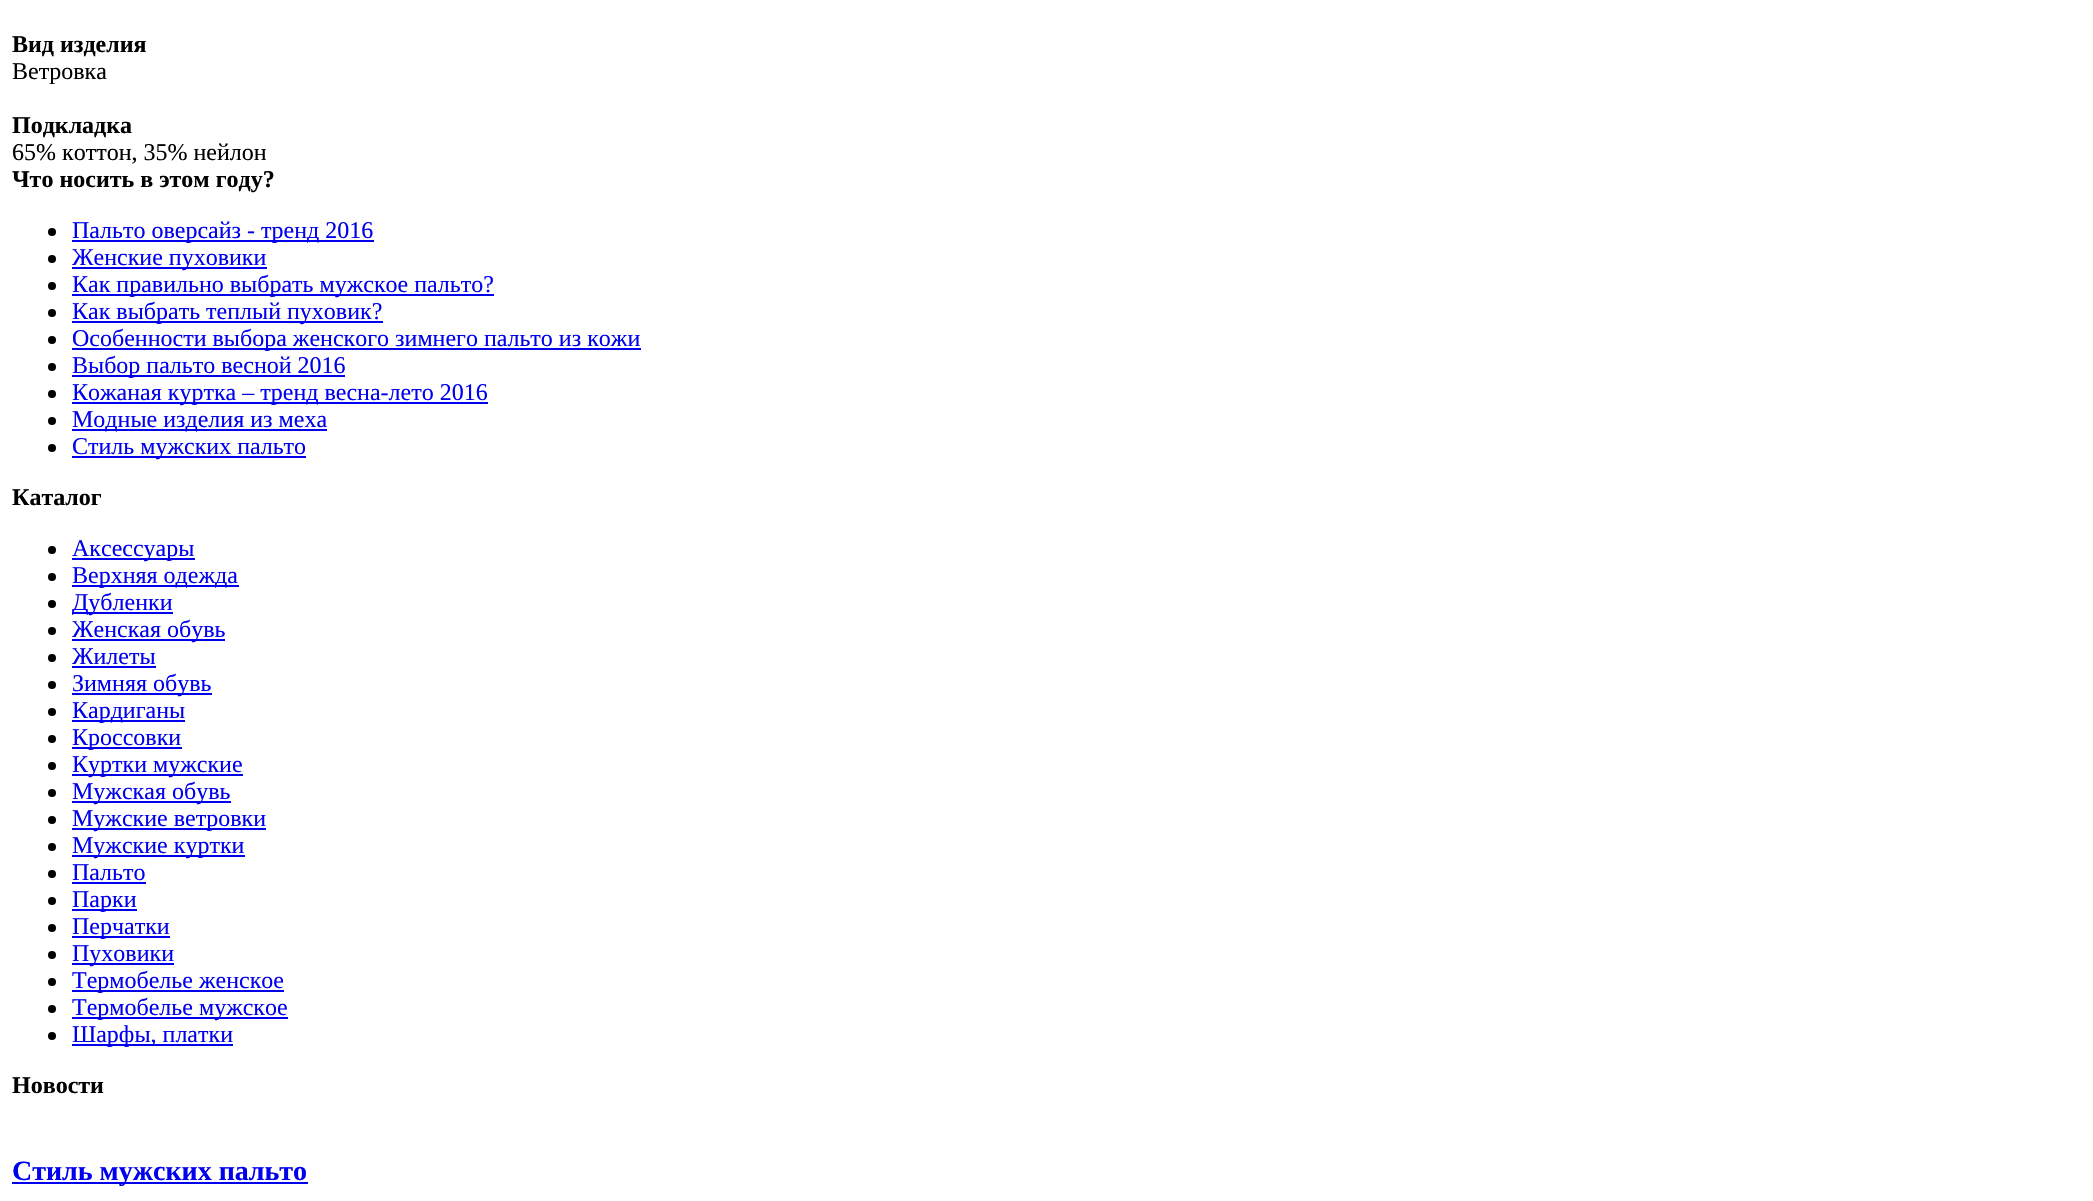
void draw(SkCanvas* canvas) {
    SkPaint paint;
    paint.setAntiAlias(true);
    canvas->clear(0xFFFFFFFF);
    SkFont font1(fontMgr->matchFamilyStyle("Liberation Serif", SkFontStyle::Bold()), 24);
    font1.setSubpixel(true);
    paint.setColor(0xFF000000);
    canvas->drawString("Вид изделия", 12, 52, font1, paint);
    SkFont font2(fontMgr->matchFamilyStyle("Liberation Serif", SkFontStyle::Normal()), 24);
    font2.setSubpixel(true);
    canvas->drawString("Ветровка", 12, 79, font2, paint);
    canvas->drawString("Подкладка", 12, 133, font1, paint);
    canvas->drawString("65% коттон, 35% нейлон", 12, 160, font2, paint);
    canvas->drawString("Что носить в этом году?", 12, 187, font1, paint);
    canvas->drawCircle(52, 232, 4, paint);
    paint.setColor(0xFF0000EE);
    canvas->drawRect(SkRect::MakeXYWH(72, 240, 302, 2), paint);
    canvas->drawString("Пальто оверсайз - тренд 2016", 72, 238, font2, paint);
    paint.setColor(0xFF000000);
    canvas->drawCircle(52, 259, 4, paint);
    paint.setColor(0xFF0000EE);
    canvas->drawRect(SkRect::MakeXYWH(72, 267, 195, 2), paint);
    canvas->drawString("Женские пуховики", 72, 265, font2, paint);
    paint.setColor(0xFF000000);
    canvas->drawCircle(52, 286, 4, paint);
    paint.setColor(0xFF0000EE);
    canvas->drawRect(SkRect::MakeXYWH(72, 294, 422, 2), paint);
    canvas->drawString("Как правильно выбрать мужское пальто?", 72, 292, font2, paint);
    paint.setColor(0xFF000000);
    canvas->drawCircle(52, 313, 4, paint);
    paint.setColor(0xFF0000EE);
    canvas->drawRect(SkRect::MakeXYWH(72, 321, 311, 2), paint);
    canvas->drawString("Как выбрать теплый пуховик?", 72, 319, font2, paint);
    paint.setColor(0xFF000000);
    canvas->drawCircle(52, 340, 4, paint);
    paint.setColor(0xFF0000EE);
    canvas->drawRect(SkRect::MakeXYWH(72, 348, 569, 2), paint);
    canvas->drawString("Особенности выбора женского зимнего пальто из кожи", 72, 346, font2, paint);
    paint.setColor(0xFF000000);
    canvas->drawCircle(52, 367, 4, paint);
    paint.setColor(0xFF0000EE);
    canvas->drawRect(SkRect::MakeXYWH(72, 375, 273, 2), paint);
    canvas->drawString("Выбор пальто весной 2016", 72, 373, font2, paint);
    paint.setColor(0xFF000000);
    canvas->drawCircle(52, 394, 4, paint);
    paint.setColor(0xFF0000EE);
    canvas->drawRect(SkRect::MakeXYWH(72, 402, 416, 2), paint);
    canvas->drawString("Кожаная куртка – тренд весна-лето 2016", 72, 400, font2, paint);
    paint.setColor(0xFF000000);
    canvas->drawCircle(52, 421, 4, paint);
    paint.setColor(0xFF0000EE);
    canvas->drawRect(SkRect::MakeXYWH(72, 429, 255, 2), paint);
    canvas->drawString("Модные изделия из меха", 72, 427, font2, paint);
    paint.setColor(0xFF000000);
    canvas->drawCircle(52, 448, 4, paint);
    paint.setColor(0xFF0000EE);
    canvas->drawRect(SkRect::MakeXYWH(72, 456, 234, 2), paint);
    canvas->drawString("Стиль мужских пальто", 72, 454, font2, paint);
    paint.setColor(0xFF000000);
    canvas->drawString("Каталог", 12, 505, font1, paint);
    canvas->drawCircle(52, 550, 4, paint);
    paint.setColor(0xFF0000EE);
    canvas->drawRect(SkRect::MakeXYWH(72, 558, 123, 2), paint);
    canvas->drawString("Аксессуары", 72, 556, font2, paint);
    paint.setColor(0xFF000000);
    canvas->drawCircle(52, 577, 4, paint);
    paint.setColor(0xFF0000EE);
    canvas->drawRect(SkRect::MakeXYWH(72, 585, 167, 2), paint);
    canvas->drawString("Верхняя одежда", 72, 583, font2, paint);
    paint.setColor(0xFF000000);
    canvas->drawCircle(52, 604, 4, paint);
    paint.setColor(0xFF0000EE);
    canvas->drawRect(SkRect::MakeXYWH(72, 612, 101, 2), paint);
    canvas->drawString("Дубленки", 72, 610, font2, paint);
    paint.setColor(0xFF000000);
    canvas->drawCircle(52, 631, 4, paint);
    paint.setColor(0xFF0000EE);
    canvas->drawRect(SkRect::MakeXYWH(72, 639, 153, 2), paint);
    canvas->drawString("Женская обувь", 72, 637, font2, paint);
    paint.setColor(0xFF000000);
    canvas->drawCircle(52, 658, 4, paint);
    paint.setColor(0xFF0000EE);
    canvas->drawString("Жилеты", 72, 664, font2, paint);
    canvas->drawRect(SkRect::MakeXYWH(72, 666, 84, 2), paint);
    paint.setColor(0xFF000000);
    canvas->drawCircle(52, 685, 4, paint);
    paint.setColor(0xFF0000EE);
    canvas->drawRect(SkRect::MakeXYWH(72, 693, 140, 2), paint);
    canvas->drawString("Зимняя обувь", 72, 691, font2, paint);
    paint.setColor(0xFF000000);
    canvas->drawCircle(52, 712, 4, paint);
    paint.setColor(0xFF0000EE);
    canvas->drawRect(SkRect::MakeXYWH(72, 720, 113, 2), paint);
    canvas->drawString("Кардиганы", 72, 718, font2, paint);
    paint.setColor(0xFF000000);
    canvas->drawCircle(52, 739, 4, paint);
    paint.setColor(0xFF0000EE);
    canvas->drawRect(SkRect::MakeXYWH(72, 747, 110, 2), paint);
    canvas->drawString("Кроссовки", 72, 745, font2, paint);
    paint.setColor(0xFF000000);
    canvas->drawCircle(52, 766, 4, paint);
    paint.setColor(0xFF0000EE);
    canvas->drawRect(SkRect::MakeXYWH(72, 774, 171, 2), paint);
    canvas->drawString("Куртки мужские", 72, 772, font2, paint);
    paint.setColor(0xFF000000);
    canvas->drawCircle(52, 793, 4, paint);
    paint.setColor(0xFF0000EE);
    canvas->drawRect(SkRect::MakeXYWH(72, 801, 159, 2), paint);
    canvas->drawString("Мужская обувь", 72, 799, font2, paint);
    paint.setColor(0xFF000000);
    canvas->drawCircle(52, 820, 4, paint);
    paint.setColor(0xFF0000EE);
    canvas->drawRect(SkRect::MakeXYWH(72, 828, 194, 2), paint);
    canvas->drawString("Мужские ветровки", 72, 826, font2, paint);
    paint.setColor(0xFF000000);
    canvas->drawCircle(52, 847, 4, paint);
    paint.setColor(0xFF0000EE);
    canvas->drawRect(SkRect::MakeXYWH(72, 855, 173, 2), paint);
    canvas->drawString("Мужские куртки", 72, 853, font2, paint);
    paint.setColor(0xFF000000);
    canvas->drawCircle(52, 874, 4, paint);
    paint.setColor(0xFF0000EE);
    canvas->drawString("Пальто", 72, 880, font2, paint);
    canvas->drawRect(SkRect::MakeXYWH(72, 882, 74, 2), paint);
    paint.setColor(0xFF000000);
    canvas->drawCircle(52, 901, 4, paint);
    paint.setColor(0xFF0000EE);
    canvas->drawRect(SkRect::MakeXYWH(72, 909, 65, 2), paint);
    canvas->drawString("Парки", 72, 907, font2, paint);
    paint.setColor(0xFF000000);
    canvas->drawCircle(52, 928, 4, paint);
    paint.setColor(0xFF0000EE);
    canvas->drawRect(SkRect::MakeXYWH(72, 936, 98, 2), paint);
    canvas->drawString("Перчатки", 72, 934, font2, paint);
    paint.setColor(0xFF000000);
    canvas->drawCircle(52, 955, 4, paint);
    paint.setColor(0xFF0000EE);
    canvas->drawRect(SkRect::MakeXYWH(72, 963, 102, 2), paint);
    canvas->drawString("Пуховики", 72, 961, font2, paint);
    paint.setColor(0xFF000000);
    canvas->drawCircle(52, 982, 4, paint);
    paint.setColor(0xFF0000EE);
    canvas->drawRect(SkRect::MakeXYWH(72, 990, 212, 2), paint);
    canvas->drawString("Термобелье женское", 72, 988, font2, paint);
    paint.setColor(0xFF000000);
    canvas->drawCircle(52, 1009, 4, paint);
    paint.setColor(0xFF0000EE);
    canvas->drawRect(SkRect::MakeXYWH(72, 1017, 216, 2), paint);
    canvas->drawString("Термобелье мужское", 72, 1015, font2, paint);
    paint.setColor(0xFF000000);
    canvas->drawCircle(52, 1036, 4, paint);
    paint.setColor(0xFF0000EE);
    canvas->drawRect(SkRect::MakeXYWH(72, 1044, 161, 2), paint);
    canvas->drawString("Шарфы, платки", 72, 1042, font2, paint);
    paint.setColor(0xFF000000);
    canvas->drawString("Новости", 12, 1093, font1, paint);
    paint.setColor(0xFF0000EE);
    canvas->drawRect(SkRect::MakeXYWH(12, 1182, 296, 2), paint);
    SkFont font3(fontMgr->matchFamilyStyle("Liberation Serif", SkFontStyle::Bold()), 28);
    font3.setSubpixel(true);
    canvas->drawString("Стиль мужских пальто", 12, 1180, font3, paint);
}
